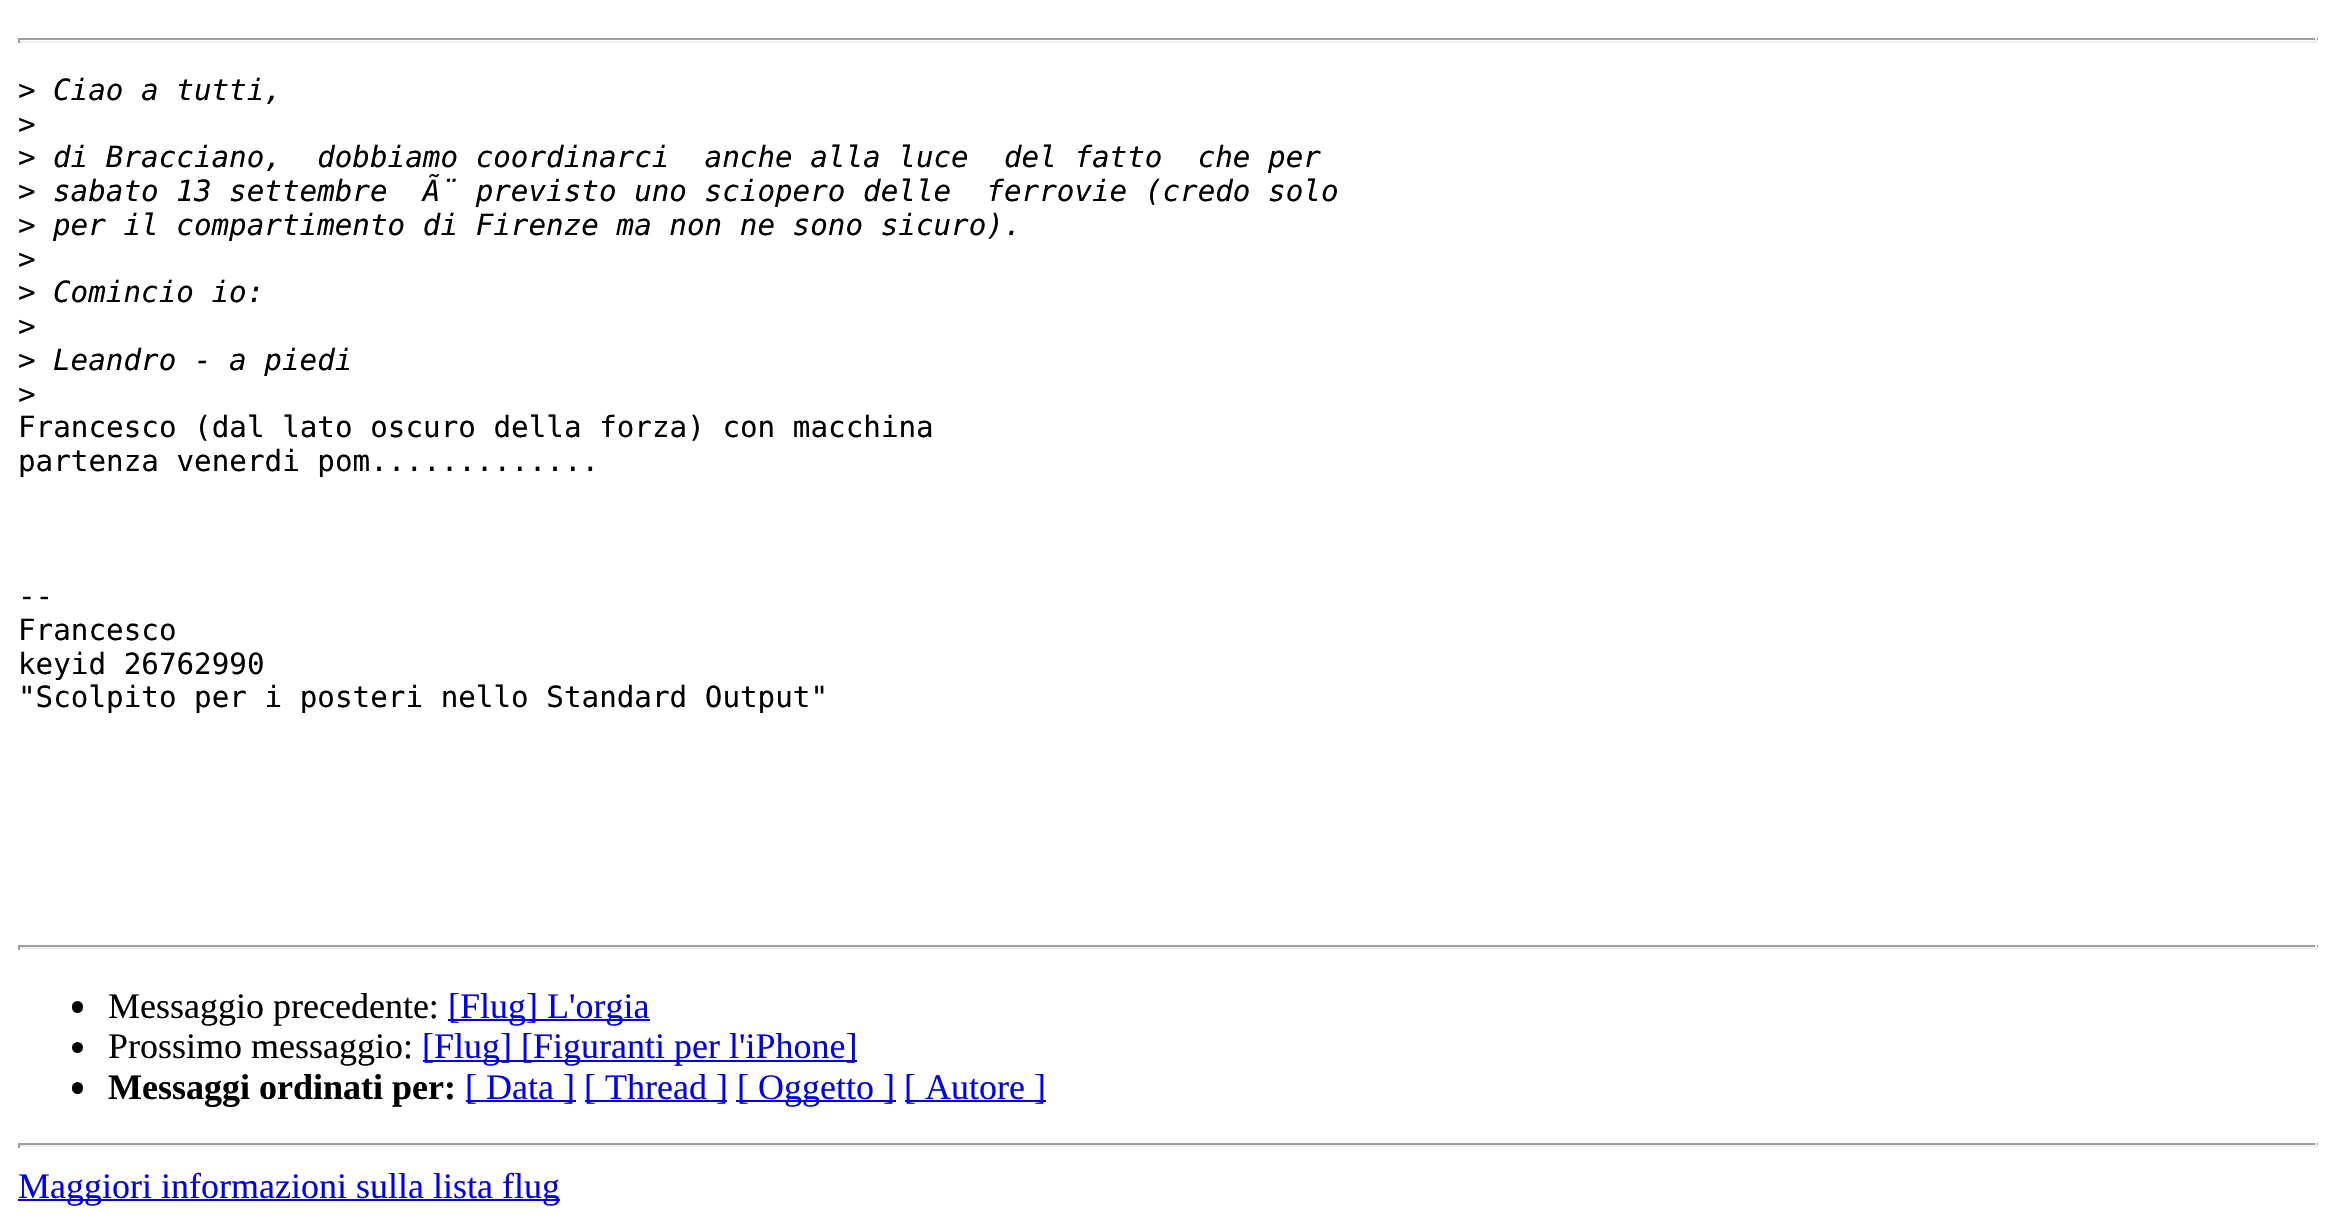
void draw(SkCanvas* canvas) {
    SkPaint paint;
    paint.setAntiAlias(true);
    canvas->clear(0xFFFFFFFF);
    paint.setColor(0xFF9F9F9F);
    canvas->drawRect(SkRect::MakeXYWH(18, 38, 2300, 2), paint);
    paint.setColor(0xFFEEEEEE);
    canvas->drawRect(SkRect::MakeXYWH(2315, 38, 2, 5), paint);
    canvas->drawRect(SkRect::MakeXYWH(18, 41, 2300, 2), paint);
    paint.setColor(0xFF9F9F9F);
    canvas->drawRect(SkRect::MakeXYWH(18, 38, 2, 5), paint);
    SkFont font1(fontMgr->matchFamilyStyle("DejaVu Sans Mono", SkFontStyle::Normal()), 29.25f);
    font1.setSubpixel(true);
    paint.setColor(0xFF000000);
    canvas->drawString(">", 18, 100, font1, paint);
    SkFont font2(fontMgr->matchFamilyStyle("DejaVu Sans Mono", SkFontStyle::Italic()), 29.25f);
    font2.setSubpixel(true);
    canvas->drawString("Ciao a tutti,", 53, 100, font2, paint);
    canvas->drawString(">", 18, 134, font1, paint);
    canvas->drawString(">", 18, 167, font1, paint);
    canvas->drawString("di Bracciano,  dobbiamo coordinarci  anche alla luce  del fatto  che per", 53, 167, font2, paint);
    canvas->drawString(">", 18, 201, font1, paint);
    canvas->drawString("sabato 13 settembre  Ã¨ previsto uno sciopero delle  ferrovie (credo solo", 53, 201, font2, paint);
    canvas->drawString(">", 18, 235, font1, paint);
    canvas->drawString("per il compartimento di Firenze ma non ne sono sicuro).", 53, 235, font2, paint);
    canvas->drawString(">", 18, 269, font1, paint);
    canvas->drawString(">", 18, 302, font1, paint);
    canvas->drawString("Comincio io:", 53, 302, font2, paint);
    canvas->drawString(">", 18, 336, font1, paint);
    canvas->drawString(">", 18, 370, font1, paint);
    canvas->drawString("Leandro - a piedi", 53, 370, font2, paint);
    canvas->drawString(">", 18, 404, font1, paint);
    canvas->drawString("Francesco (dal lato oscuro della forza) con macchina", 18, 437, font1, paint);
    canvas->drawString("partenza venerdi pom.............", 18, 471, font1, paint);
    canvas->drawString("--", 18, 606, font1, paint);
    canvas->drawString("Francesco", 18, 640, font1, paint);
    canvas->drawString("keyid 26762990", 18, 674, font1, paint);
    canvas->drawString("\"Scolpito per i posteri nello Standard Output\"", 18, 707, font1, paint);
    paint.setColor(0xFF9F9F9F);
    canvas->drawRect(SkRect::MakeXYWH(18, 945, 2300, 2), paint);
    paint.setColor(0xFFEEEEEE);
    canvas->drawRect(SkRect::MakeXYWH(2315, 945, 2, 5), paint);
    canvas->drawRect(SkRect::MakeXYWH(18, 947, 2300, 2), paint);
    paint.setColor(0xFF9F9F9F);
    canvas->drawRect(SkRect::MakeXYWH(18, 945, 2, 5), paint);
    paint.setColor(0xFF000000);
    canvas->drawRoundRect(SkRect::MakeXYWH(72, 1001, 11, 12), 5.5f, 5.5f, paint);
    SkFont font3(fontMgr->matchFamilyStyle("Liberation Serif", SkFontStyle::Normal()), 36);
    font3.setSubpixel(true);
    canvas->drawString("Messaggio precedente:", 108, 1018, font3, paint);
    paint.setColor(0xFF0000EE);
    canvas->drawRect(SkRect::MakeXYWH(448, 1019, 202, 2), paint);
    canvas->drawString("[Flug] L'orgia", 448, 1018, font3, paint);
    paint.setColor(0xFF000000);
    canvas->drawCircle(77.5f, 1047.5f, 5.5f, paint);
    canvas->drawString("Prossimo messaggio:", 108, 1058, font3, paint);
    paint.setColor(0xFF0000EE);
    canvas->drawRect(SkRect::MakeXYWH(423, 1060, 434, 2), paint);
    canvas->drawString("[Flug] [Figuranti per l'iPhone]", 422, 1058, font3, paint);
    paint.setColor(0xFF000000);
    canvas->drawRoundRect(SkRect::MakeXYWH(72, 1082, 11, 12), 5.5f, 5.5f, paint);
    SkFont font4(fontMgr->matchFamilyStyle("Liberation Serif", SkFontStyle::Bold()), 36);
    font4.setSubpixel(true);
    canvas->drawString("Messaggi ordinati per:", 108, 1099, font4, paint);
    paint.setColor(0xFF0000EE);
    canvas->drawRect(SkRect::MakeXYWH(466, 1100, 110, 2), paint);
    canvas->drawString("[ Data ]", 465, 1099, font3, paint);
    canvas->drawRect(SkRect::MakeXYWH(585, 1100, 142, 2), paint);
    canvas->drawString("[ Thread ]", 584, 1099, font3, paint);
    canvas->drawRect(SkRect::MakeXYWH(736, 1100, 160, 2), paint);
    canvas->drawString("[ Oggetto ]", 737, 1099, font3, paint);
    canvas->drawRect(SkRect::MakeXYWH(905, 1100, 141, 2), paint);
    canvas->drawString("[ Autore ]", 904, 1099, font3, paint);
    paint.setColor(0xFF9F9F9F);
    canvas->drawRect(SkRect::MakeXYWH(18, 1143, 2300, 2), paint);
    paint.setColor(0xFFEEEEEE);
    canvas->drawRect(SkRect::MakeXYWH(2315, 1143, 2, 5), paint);
    canvas->drawRect(SkRect::MakeXYWH(18, 1145, 2300, 2), paint);
    paint.setColor(0xFF9F9F9F);
    canvas->drawRect(SkRect::MakeXYWH(18, 1143, 2, 5), paint);
    paint.setColor(0xFF0000EE);
    canvas->drawRect(SkRect::MakeXYWH(18, 1199, 542, 2), paint);
    canvas->drawString("Maggiori informazioni sulla lista flug", 18, 1198, font3, paint);
}
